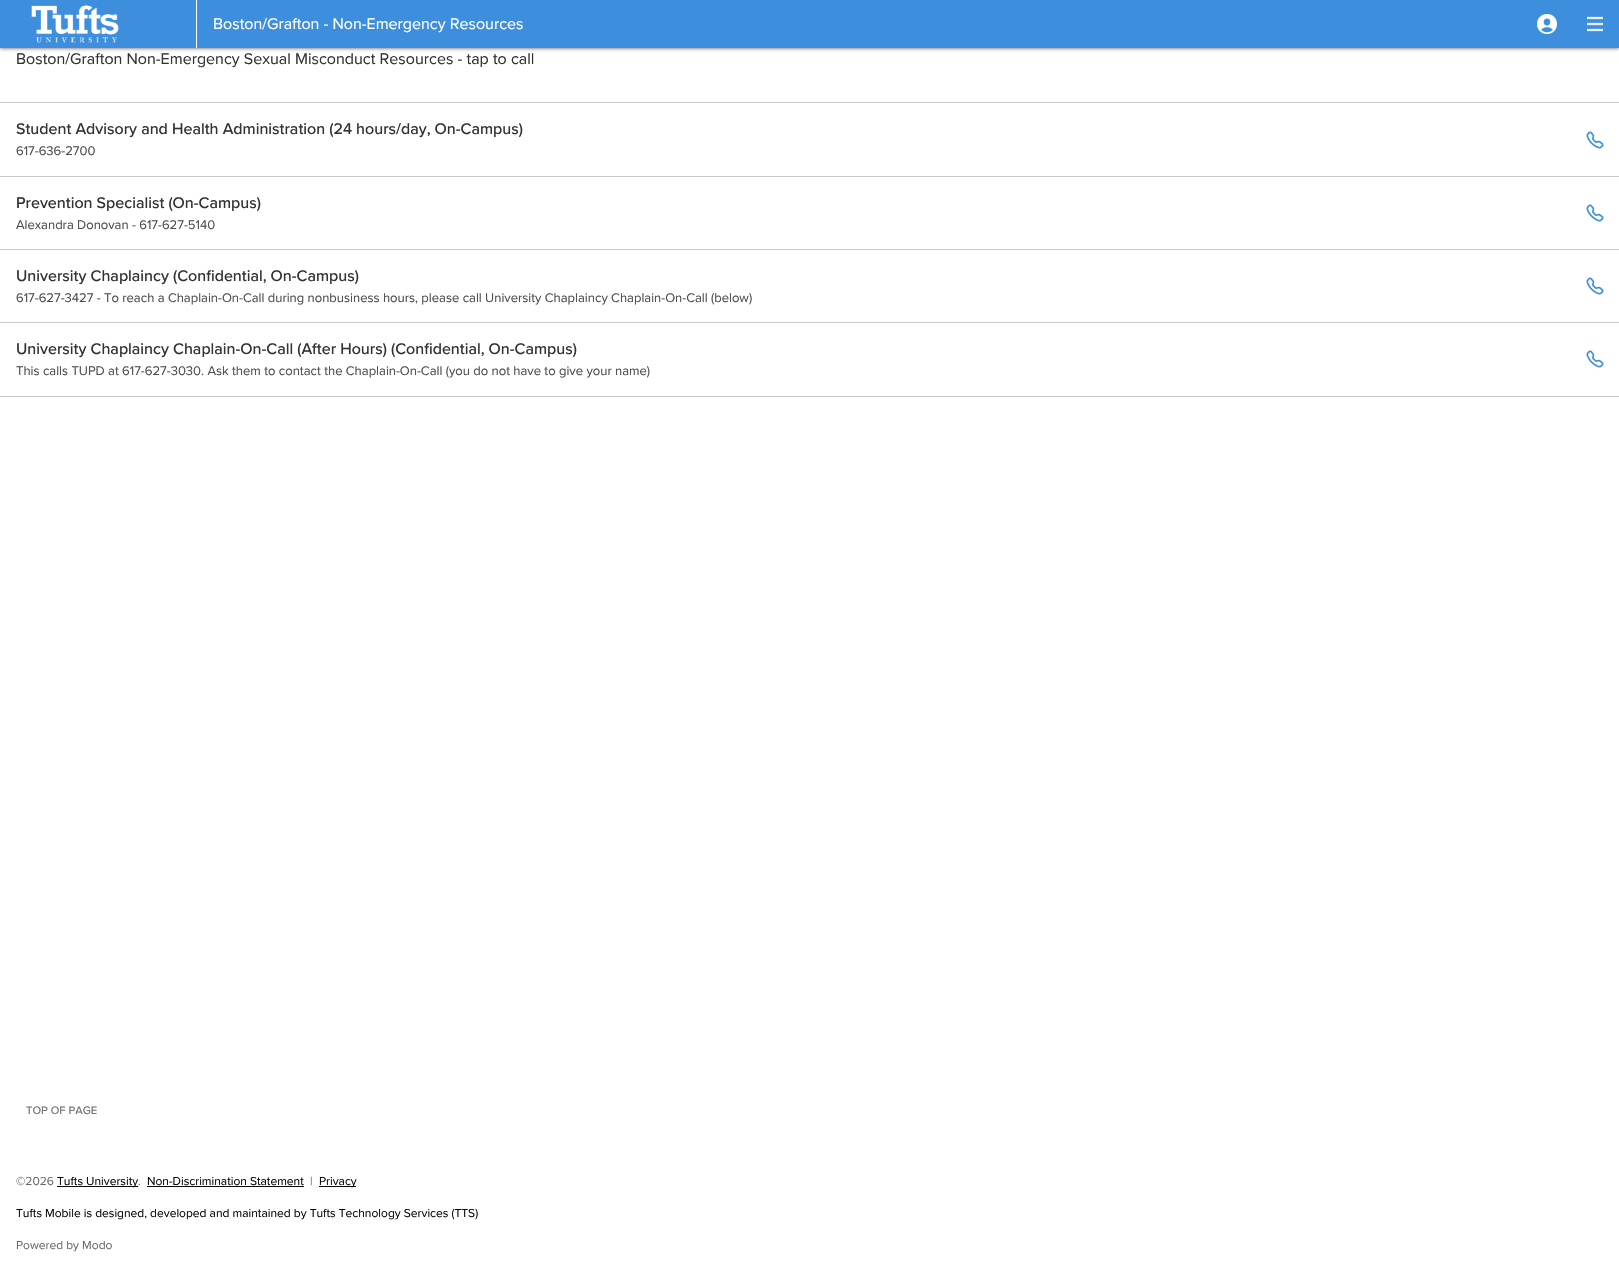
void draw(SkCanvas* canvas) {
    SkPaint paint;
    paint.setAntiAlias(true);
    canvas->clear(0xFFFFFFFF);
    paint.setColor(0xB3000000);
    paint.setMaskFilter(SkMaskFilter::MakeBlur(kNormal_SkBlurStyle, 2));
    canvas->drawRect(SkRect::MakeXYWH(0, 0, 1619, 48), paint);
    paint.setMaskFilter(nullptr);
    paint.setColor(0xFF3E8EDE);
    canvas->drawRect(SkRect::MakeXYWH(0, 0, 1619, 48), paint);
    canvas->drawImageRect(SkImages::DeferredFromEncodedData(SkData::MakeFromFileName("img1.png")), SkRect::MakeXYWH(31, 5, 88, 38), SkSamplingOptions());
    paint.setColor(0xFFFFFFFF);
    canvas->drawRect(SkRect::MakeXYWH(196, 0, 1, 48), paint);
    SkFont font1(fontMgr->matchFamilyStyle("Proxima Nova", SkFontStyle::Normal()), 16);
    font1.setSubpixel(true);
    canvas->drawString("Boston/Grafton - Non-Emergency Resources", 213, 29, font1, paint);
    canvas->drawImageRect(SkImages::DeferredFromEncodedData(SkData::MakeFromFileName("img2.png")), SkRect::MakeXYWH(1537, 14, 20, 20), SkSamplingOptions());
    canvas->drawImageRect(SkImages::DeferredFromEncodedData(SkData::MakeFromFileName("img3.png")), SkRect::MakeXYWH(1587, 16, 16, 16), SkSamplingOptions());
    paint.setColor(0xFF333333);
    canvas->drawString("Boston/Grafton Non-Emergency Sexual Misconduct Resources - tap to call", 16, 64, font1, paint);
    paint.setColor(0xFFC9C9C9);
    canvas->drawRect(SkRect::MakeXYWH(0, 102, 1619, 1), paint);
    canvas->drawRect(SkRect::MakeXYWH(0, 396, 1619, 1), paint);
    SkFont font2(fontMgr->matchFamilyStyle("Proxima Nova", SkFontStyle(500, SkFontStyle::kNormal_Width, SkFontStyle::kUpright_Slant)), 16);
    font2.setSubpixel(true);
    paint.setColor(0xFF333333);
    canvas->drawString("Student Advisory and Health Administration (24 hours/day, On-Campus)", 16, 134, font2, paint);
    SkFont font3(fontMgr->matchFamilyStyle("Proxima Nova", SkFontStyle::Normal()), 13);
    font3.setSubpixel(true);
    paint.setColor(0xFF4E4E4E);
    canvas->drawString("617-636-2700", 16, 155, font3, paint);
    canvas->drawImageRect(SkImages::DeferredFromEncodedData(SkData::MakeFromFileName("img4.png")), SkRect::MakeXYWH(1586, 131, 18, 18), SkSamplingOptions());
    paint.setColor(0xFFC9C9C9);
    canvas->drawRect(SkRect::MakeXYWH(0, 176, 1619, 1), paint);
    paint.setColor(0xFF333333);
    canvas->drawString("Prevention Specialist (On-Campus)", 16, 208, font2, paint);
    paint.setColor(0xFF4E4E4E);
    canvas->drawString("Alexandra Donovan - 617-627-5140", 16, 229, font3, paint);
    canvas->drawImageRect(SkImages::DeferredFromEncodedData(SkData::MakeFromFileName("img4.png")), SkRect::MakeXYWH(1586, 204, 18, 18), SkSamplingOptions());
    paint.setColor(0xFFC9C9C9);
    canvas->drawRect(SkRect::MakeXYWH(0, 249, 1619, 1), paint);
    paint.setColor(0xFF333333);
    canvas->drawString("University Chaplaincy (Confidential, On-Campus)", 16, 281, font2, paint);
    paint.setColor(0xFF4E4E4E);
    canvas->drawString("617-627-3427 - To reach a Chaplain-On-Call during nonbusiness hours, please call University Chaplaincy Chaplain-On-Call (below)", 16, 302, font3, paint);
    canvas->drawImageRect(SkImages::DeferredFromEncodedData(SkData::MakeFromFileName("img4.png")), SkRect::MakeXYWH(1586, 277, 18, 18), SkSamplingOptions());
    paint.setColor(0xFFC9C9C9);
    canvas->drawRect(SkRect::MakeXYWH(0, 322, 1619, 1), paint);
    paint.setColor(0xFF333333);
    canvas->drawString("University Chaplaincy Chaplain-On-Call (After Hours) (Confidential, On-Campus)", 16, 354, font2, paint);
    paint.setColor(0xFF4E4E4E);
    canvas->drawString("This calls TUPD at 617-627-3030. Ask them to contact the Chaplain-On-Call (you do not have to give your name)", 16, 375, font3, paint);
    canvas->drawImageRect(SkImages::DeferredFromEncodedData(SkData::MakeFromFileName("img4.png")), SkRect::MakeXYWH(1586, 350, 18, 18), SkSamplingOptions());
    SkFont font4(fontMgr->matchFamilyStyle("Proxima Nova", SkFontStyle(500, SkFontStyle::kNormal_Width, SkFontStyle::kUpright_Slant)), 11.25f);
    font4.setSubpixel(true);
    paint.setColor(0xFF767676);
    canvas->drawString("TOP OF PAGE", 26, 1114, font4, paint);
    SkFont font5(fontMgr->matchFamilyStyle("Proxima Nova", SkFontStyle::Normal()), 12);
    font5.setSubpixel(true);
    paint.setColor(0xFF6A6A6A);
    canvas->drawString("©2026", 16, 1185, font5, paint);
    paint.setColor(0xFF090909);
    canvas->drawRect(SkRect::MakeXYWH(57, 1186, 81, 1), paint);
    canvas->drawString("Tufts University", 57, 1185, font5, paint);
    paint.setColor(0xFF6A6A6A);
    canvas->drawString(".", 138, 1185, font5, paint);
    paint.setColor(0xFF090909);
    canvas->drawString("Non-Discrimination Statement", 147, 1185, font5, paint);
    canvas->drawRect(SkRect::MakeXYWH(147, 1186, 157, 1), paint);
    paint.setColor(0xFF6A6A6A);
    canvas->drawString("|", 310, 1185, font5, paint);
    paint.setColor(0xFF090909);
    canvas->drawRect(SkRect::MakeXYWH(319, 1186, 37, 1), paint);
    canvas->drawString("Privacy", 319, 1185, font5, paint);
    canvas->drawString("Tufts Mobile is designed, developed and maintained by Tufts Technology Services (TTS)", 16, 1217, font5, paint);
    paint.setColor(0xFF6A6A6A);
    canvas->drawString("Powered by Modo", 16, 1249, font5, paint);
}
